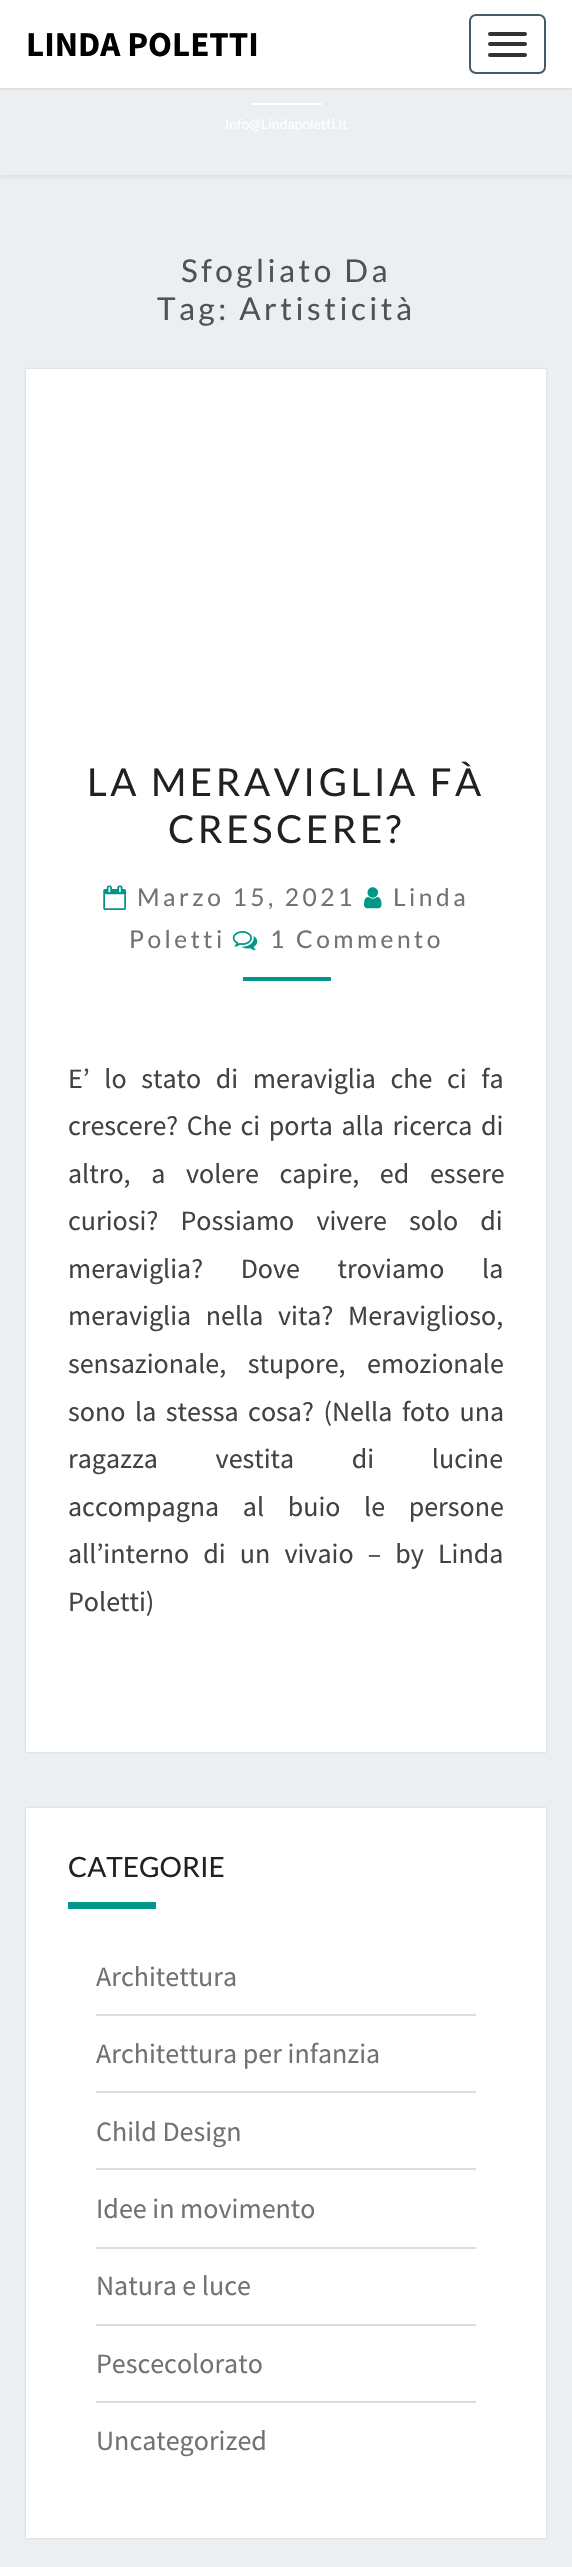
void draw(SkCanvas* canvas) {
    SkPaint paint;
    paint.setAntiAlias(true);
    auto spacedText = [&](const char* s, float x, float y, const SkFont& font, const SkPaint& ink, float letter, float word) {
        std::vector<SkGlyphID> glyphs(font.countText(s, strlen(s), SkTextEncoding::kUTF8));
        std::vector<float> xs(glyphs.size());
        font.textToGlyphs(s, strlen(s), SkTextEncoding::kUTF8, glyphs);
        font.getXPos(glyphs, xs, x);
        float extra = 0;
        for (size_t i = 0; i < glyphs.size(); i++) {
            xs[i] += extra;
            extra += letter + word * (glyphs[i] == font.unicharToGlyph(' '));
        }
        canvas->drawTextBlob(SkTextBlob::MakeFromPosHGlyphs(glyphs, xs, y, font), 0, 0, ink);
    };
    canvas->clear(0xFFECEFF1);
    paint.setColor(0x33646464);
    paint.setMaskFilter(SkMaskFilter::MakeBlur(kNormal_SkBlurStyle, 1));
    canvas->drawRect(SkRect::MakeXYWH(0, 2, 572, 87), paint);
    paint.setMaskFilter(nullptr);
    canvas->save();
    canvas->clipRect(SkRect::MakeXYWH(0, 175, 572, 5));
    paint.setColor(0x4DB6B6B6);
    paint.setMaskFilter(SkMaskFilter::MakeBlur(kNormal_SkBlurStyle, 2));
    canvas->drawRect(SkRect::MakeXYWH(-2, -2, 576, 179), paint);
    paint.setMaskFilter(nullptr);
    canvas->restore();
    paint.setColor(0xFFFFFFFF);
    canvas->drawRect(SkRect::MakeXYWH(0, 0, 572, 88), paint);
    SkFont font1(fontMgr->matchFamilyStyle("Source Sans Pro", SkFontStyle::Bold()), 35);
    font1.setSubpixel(true);
    paint.setColor(0xFF000000);
    canvas->drawString("LINDA POLETTI", 26, 56, font1, paint);
    paint.setStyle(SkPaint::kStroke_Style);
    paint.setStrokeWidth(2);
    paint.setColor(0xFF455A64);
    canvas->drawRoundRect(SkRect::MakeXYWH(470, 15, 75, 58), 6, 6, paint);
    paint.setStyle(SkPaint::kFill_Style);
    paint.setColor(0xFF333333);
    canvas->drawRoundRect(SkRect::MakeXYWH(488, 32, 39, 4), 2, 2, paint);
    canvas->drawRoundRect(SkRect::MakeXYWH(488, 42, 39, 4), 2, 2, paint);
    canvas->drawRoundRect(SkRect::MakeXYWH(488, 53, 39, 4), 2, 2, paint);
    paint.setColor(0xFFFFFFFF);
    canvas->drawRect(SkRect::MakeXYWH(252, 103, 70, 2), paint);
    SkFont font2(fontMgr->matchFamilyStyle("Lato", SkFontStyle::Normal()), 14);
    font2.setSubpixel(true);
    canvas->drawString("Info@Lindapoletti.It", 225, 129, font2, paint);
    SkFont font3(fontMgr->matchFamilyStyle("Lato", SkFontStyle::Normal()), 31.5f);
    font3.setSubpixel(true);
    paint.setColor(0xFF525252);
    spacedText("Sfogliato Da", 181, 282, font3, paint, 3.5f, 0);
    spacedText("Tag: Artisticità", 157, 320, font3, paint, 3.5f, 0);
    paint.setColor(0x26000000);
    paint.setMaskFilter(SkMaskFilter::MakeBlur(kNormal_SkBlurStyle, 1));
    canvas->drawRect(SkRect::MakeXYWH(26, 369, 520, 1383), paint);
    paint.setMaskFilter(nullptr);
    paint.setColor(0xFFFFFFFF);
    canvas->drawRect(SkRect::MakeXYWH(26, 369, 520, 1383), paint);
    SkFont font4(fontMgr->matchFamilyStyle("Lato", SkFontStyle::Normal()), 38.5f);
    font4.setSubpixel(true);
    paint.setColor(0xFF212121);
    spacedText("LA MERAVIGLIA FÀ", 87, 796, font4, paint, 3.5f, 0);
    spacedText("CRESCERE?", 168, 843, font4, paint, 3.5f, 0);
    canvas->drawImageRect(SkImages::DeferredFromEncodedData(SkData::MakeFromFileName("img1.png")), SkRect::MakeXYWH(103, 885, 23, 25), SkSamplingOptions());
    canvas->drawImageRect(SkImages::DeferredFromEncodedData(SkData::MakeFromFileName("img2.png")), SkRect::MakeXYWH(364, 887, 18, 22), SkSamplingOptions());
    SkFont font5(fontMgr->matchFamilyStyle("Lato", SkFontStyle::Normal()), 24.5f);
    font5.setSubpixel(true);
    paint.setColor(0xFF727272);
    spacedText("Linda", 393, 906, font5, paint, 3.5f, 0);
    spacedText("Poletti", 129, 948, font5, paint, 3.5f, 0);
    spacedText("Marzo 15, 2021", 137, 906, font5, paint, 3.5f, 0);
    canvas->drawImageRect(SkImages::DeferredFromEncodedData(SkData::MakeFromFileName("img3.png")), SkRect::MakeXYWH(232, 931, 26, 20), SkSamplingOptions());
    spacedText("1 Commento", 270, 948, font5, paint, 3.5f, 0);
    paint.setColor(0xFF009688);
    canvas->drawRect(SkRect::MakeXYWH(243, 977, 88, 4), paint);
    SkFont font6(fontMgr->matchFamilyStyle("Source Sans Pro", SkFontStyle::Normal()), 28);
    font6.setSubpixel(true);
    paint.setColor(0xFF424242);
    spacedText("E’ lo stato di meraviglia che ci fa", 68, 1088, font6, paint, 0, 9);
    spacedText("crescere? Che ci porta alla ricerca di", 68, 1135, font6, paint, 0, 3);
    spacedText("altro, a volere capire, ed essere", 68, 1183, font6, paint, 0, 15);
    spacedText("curiosi? Possiamo vivere solo di", 68, 1230, font6, paint, 0, 16.5f);
    spacedText("meraviglia? Dove troviamo la", 68, 1278, font6, paint, 0, 32);
    spacedText("meraviglia nella vita? Meraviglioso,", 68, 1325, font6, paint, 0, 9);
    spacedText("sensazionale, stupore, emozionale", 68, 1373, font6, paint, 0, 16);
    spacedText("sono la stessa cosa? (Nella foto una", 68, 1421, font6, paint, 0, 4);
    spacedText("ragazza vestita di lucine", 68, 1468, font6, paint, 0, 52);
    spacedText("accompagna al buio le persone", 68, 1516, font6, paint, 0, 18);
    spacedText("all’interno di un vivaio – by Linda", 68, 1563, font6, paint, 0, 8.5f);
    canvas->drawString("Poletti)", 68, 1611, font6, paint);
    paint.setColor(0x26000000);
    paint.setMaskFilter(SkMaskFilter::MakeBlur(kNormal_SkBlurStyle, 1));
    canvas->drawRect(SkRect::MakeXYWH(26, 1808, 520, 730), paint);
    paint.setMaskFilter(nullptr);
    paint.setColor(0xFFFFFFFF);
    canvas->drawRect(SkRect::MakeXYWH(26, 1808, 520, 730), paint);
    SkFont font7(fontMgr->matchFamilyStyle("Lato", SkFontStyle::Normal()), 28);
    font7.setSubpixel(true);
    paint.setColor(0xFF212121);
    canvas->drawString("CATEGORIE", 68, 1877, font7, paint);
    paint.setColor(0xFF009688);
    canvas->drawRect(SkRect::MakeXYWH(68, 1902, 88, 7), paint);
    paint.setColor(0xFFDDDDDD);
    canvas->drawRect(SkRect::MakeXYWH(96, 2014, 380, 2), paint);
    paint.setColor(0xFF727272);
    canvas->drawString("Architettura", 96, 1986, font6, paint);
    paint.setColor(0xFFDDDDDD);
    canvas->drawRect(SkRect::MakeXYWH(96, 2091, 380, 2), paint);
    paint.setColor(0xFF727272);
    canvas->drawString("Architettura per infanzia", 96, 2063, font6, paint);
    paint.setColor(0xFFDDDDDD);
    canvas->drawRect(SkRect::MakeXYWH(96, 2168, 380, 2), paint);
    paint.setColor(0xFF727272);
    canvas->drawString("Child Design", 96, 2141, font6, paint);
    paint.setColor(0xFFDDDDDD);
    canvas->drawRect(SkRect::MakeXYWH(96, 2247, 380, 2), paint);
    paint.setColor(0xFF727272);
    canvas->drawString("Idee in movimento", 96, 2218, font6, paint);
    paint.setColor(0xFFDDDDDD);
    canvas->drawRect(SkRect::MakeXYWH(96, 2324, 380, 2), paint);
    paint.setColor(0xFF727272);
    canvas->drawString("Natura e luce", 96, 2295, font6, paint);
    paint.setColor(0xFFDDDDDD);
    canvas->drawRect(SkRect::MakeXYWH(96, 2401, 380, 2), paint);
    paint.setColor(0xFF727272);
    canvas->drawString("Pescecolorato", 96, 2373, font6, paint);
    canvas->drawString("Uncategorized", 96, 2450, font6, paint);
}
